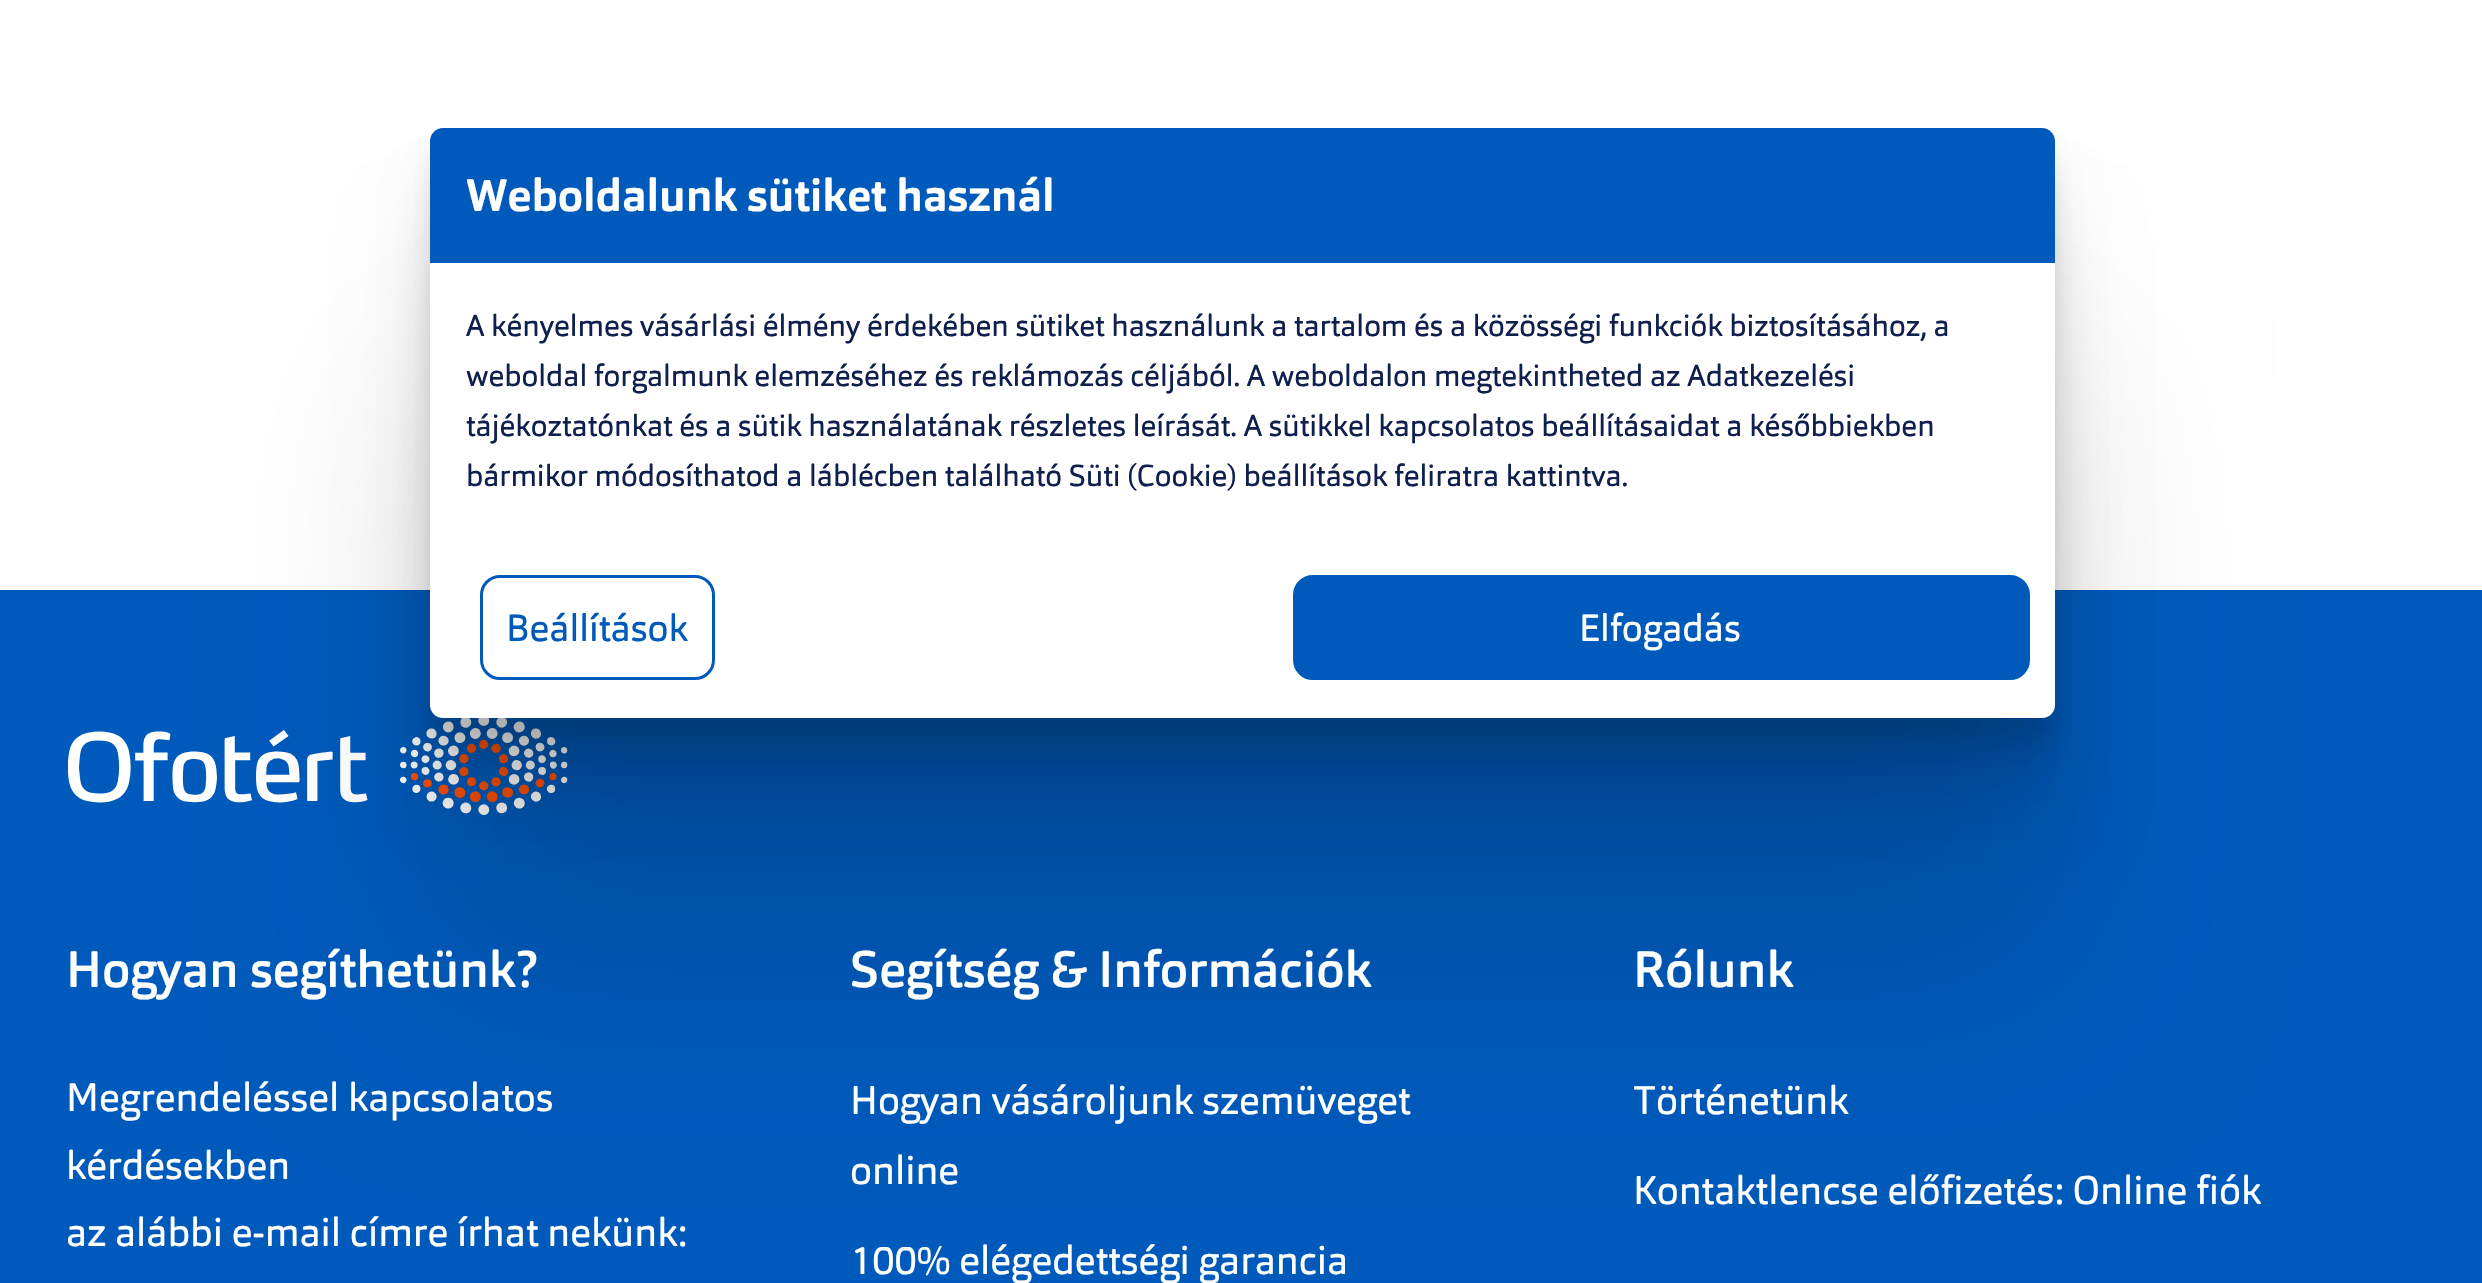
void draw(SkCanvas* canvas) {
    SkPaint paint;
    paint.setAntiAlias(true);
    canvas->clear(0xFFFFFFFF);
    paint.setColor(0xFF005ABB);
    canvas->drawRect(SkRect::MakeXYWH(0, 590, 2482, 693), paint);
    canvas->drawImageRect(SkImages::DeferredFromEncodedData(SkData::MakeFromFileName("img1.png")), SkRect::MakeXYWH(68, 718, 500, 97), SkSamplingOptions());
    paint.setColor(0x1F000000);
    paint.setMaskFilter(SkMaskFilter::MakeBlur(kNormal_SkBlurStyle, 100));
    canvas->drawRoundRect(SkRect::MakeXYWH(430, 378, 1625, 590), 13, 13, paint);
    paint.setMaskFilter(nullptr);
    paint.setColor(0x17000000);
    paint.setMaskFilter(SkMaskFilter::MakeBlur(kNormal_SkBlurStyle, 42));
    canvas->drawRoundRect(SkRect::MakeXYWH(430, 233, 1625, 590), 13, 13, paint);
    paint.setMaskFilter(nullptr);
    paint.setColor(0x12000000);
    paint.setMaskFilter(SkMaskFilter::MakeBlur(kNormal_SkBlurStyle, 22.5f));
    canvas->drawRoundRect(SkRect::MakeXYWH(430, 183, 1625, 590), 13, 13, paint);
    paint.setMaskFilter(nullptr);
    paint.setColor(0x0F000000);
    paint.setMaskFilter(SkMaskFilter::MakeBlur(kNormal_SkBlurStyle, 12.5f));
    canvas->drawRoundRect(SkRect::MakeXYWH(430, 160, 1625, 590), 13, 13, paint);
    paint.setMaskFilter(nullptr);
    paint.setColor(0x0D000000);
    paint.setMaskFilter(SkMaskFilter::MakeBlur(kNormal_SkBlurStyle, 6.5f));
    canvas->drawRoundRect(SkRect::MakeXYWH(430, 145, 1625, 590), 13, 13, paint);
    paint.setMaskFilter(nullptr);
    paint.setColor(0xFFFFFFFF);
    canvas->drawRoundRect(SkRect::MakeXYWH(430, 128, 1625, 590), 13, 13, paint);
    paint.setColor(0xFF005ABB);
    canvas->drawPath(SkPathBuilder().moveTo(443, 128).lineTo(2042, 128).cubicTo(2049, 128, 2055, 134, 2055, 141).lineTo(2055, 263).lineTo(430, 263).lineTo(430, 141).cubicTo(430, 134, 436, 128, 443, 128).close().detach(), paint);
    SkFont font1(fontMgr->matchFamilyStyle("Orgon", SkFontStyle::Bold()), 45);
    font1.setSubpixel(true);
    paint.setColor(0xFFFFFFFF);
    canvas->drawString("Weboldalunk sütiket használ", 466, 211, font1, paint);
    SkFont font2(fontMgr->matchFamilyStyle("Orgon", SkFontStyle::Normal()), 30);
    font2.setSubpixel(true);
    paint.setColor(0xFF0F1F4E);
    canvas->drawString("A kényelmes vásárlási élmény érdekében sütiket használunk a tartalom és a közösségi funkciók biztosításához, a", 466, 336, font2, paint);
    canvas->drawString("weboldal forgalmunk elemzéséhez és reklámozás céljából. A weboldalon megtekintheted az Adatkezelési", 466, 386, font2, paint);
    canvas->drawString("tájékoztatónkat és a sütik használatának részletes leírását. A sütikkel kapcsolatos beállításaidat a későbbiekben", 466, 436, font2, paint);
    canvas->drawString("bármikor módosíthatod a láblécben található Süti (Cookie) beállítások feliratra kattintva.", 466, 486, font2, paint);
    paint.setStyle(SkPaint::kStroke_Style);
    paint.setStrokeWidth(3);
    paint.setColor(0xFF005ABB);
    canvas->drawRoundRect(SkRect::MakeXYWH(481.5f, 576.5f, 232, 102), 18.5f, 18.5f, paint);
    SkFont font3(fontMgr->matchFamilyStyle("Orgon", SkFontStyle::Normal()), 37.5f);
    font3.setSubpixel(true);
    paint.setStyle(SkPaint::kFill_Style);
    canvas->drawString("Beállítások", 506, 641, font3, paint);
    canvas->drawRoundRect(SkRect::MakeXYWH(1294.5f, 576.5f, 734, 102), 18.5f, 18.5f, paint);
    paint.setStyle(SkPaint::kStroke_Style);
    canvas->drawRoundRect(SkRect::MakeXYWH(1294.5f, 576.5f, 734, 102), 18.5f, 18.5f, paint);
    paint.setStyle(SkPaint::kFill_Style);
    paint.setColor(0xFFFFFFFF);
    canvas->drawString("Elfogadás", 1579, 641, font3, paint);
    SkFont font4(fontMgr->matchFamilyStyle("Orgon", SkFontStyle(500, SkFontStyle::kNormal_Width, SkFontStyle::kUpright_Slant)), 50.6f);
    font4.setSubpixel(true);
    canvas->drawString("Hogyan segíthetünk?", 66, 987, font4, paint);
    SkFont font5(fontMgr->matchFamilyStyle("Orgon", SkFontStyle::Normal()), 39.4f);
    font5.setSubpixel(true);
    canvas->drawString("Megrendeléssel kapcsolatos", 66, 1111, font5, paint);
    canvas->drawString("kérdésekben", 66, 1179, font5, paint);
    canvas->drawString("az alábbi e-mail címre írhat nekünk:", 66, 1246, font5, paint);
    canvas->drawString("Segítség & Információk", 850, 987, font4, paint);
    canvas->drawString("Hogyan vásároljunk szemüveget", 850, 1114, font5, paint);
    canvas->drawString("online", 850, 1184, font5, paint);
    canvas->drawString("100% elégedettségi garancia", 850, 1274, font5, paint);
    canvas->drawString("Rólunk", 1633, 987, font4, paint);
    canvas->drawString("Történetünk", 1633, 1114, font5, paint);
    canvas->drawString("Kontaktlencse előfizetés: Online fiók", 1633, 1204, font5, paint);
}
